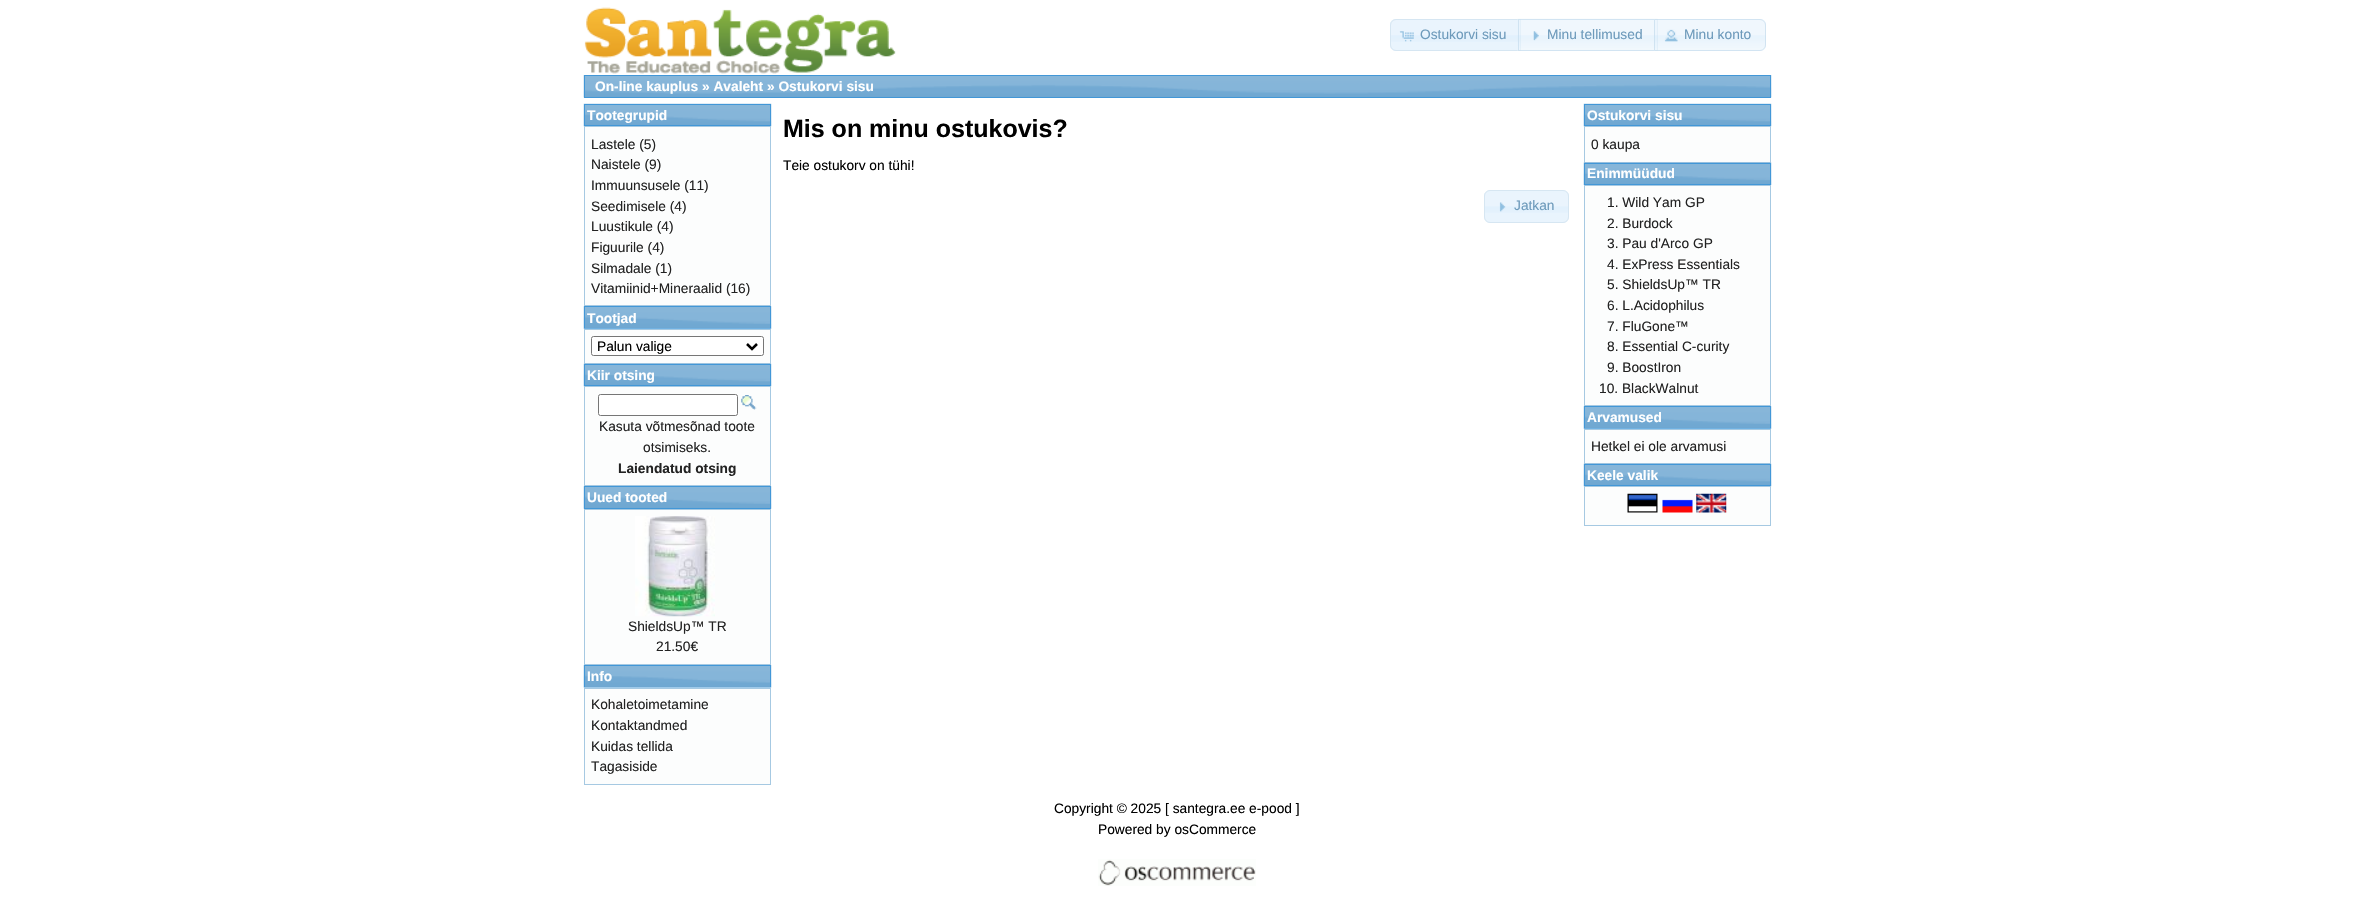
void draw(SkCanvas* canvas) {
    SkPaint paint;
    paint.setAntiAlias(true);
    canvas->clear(0xFFFFFFFF);
    canvas->drawImageRect(SkImages::DeferredFromEncodedData(SkData::MakeFromFileName("img1.png")), SkRect::MakeXYWH(584, 7, 312, 67), SkSamplingOptions());
    paint.setColor(0xFFE9F4FD);
    canvas->drawPath(SkPathBuilder().moveTo(1396, 19).lineTo(1521, 19).lineTo(1521, 51).lineTo(1396, 51).cubicTo(1392.5f, 51, 1390, 48.5f, 1390, 45).lineTo(1390, 25).cubicTo(1390, 21.5f, 1392.5f, 19, 1396, 19).close().detach(), paint);
    canvas->drawImageRect(SkImages::DeferredFromEncodedData(SkData::MakeFromFileName("img2.png")), SkRect::MakeXYWH(1390, 19, 130, 23), SkSamplingOptions());
    paint.setStyle(SkPaint::kStroke_Style);
    paint.setStrokeWidth(1);
    paint.setColor(0xFFD6E6F2);
    canvas->drawPath(SkPathBuilder().moveTo(1396, 19.5f).lineTo(1520.5f, 19.5f).lineTo(1520.5f, 50.5f).lineTo(1396, 50.5f).cubicTo(1393, 50.5f, 1390.5f, 48, 1390.5f, 45).lineTo(1390.5f, 25).cubicTo(1390.5f, 22, 1393, 19.5f, 1396, 19.5f).close().detach(), paint);
    canvas->drawImageRect(SkImages::DeferredFromEncodedData(SkData::MakeFromFileName("img3.png")), SkRect::MakeXYWH(1399, 31, 15, 11), SkSamplingOptions());
    SkFont font1(fontMgr->matchFamilyStyle("Liberation Sans", SkFontStyle::Normal()), 13.75f);
    font1.setSubpixel(true);
    paint.setStyle(SkPaint::kFill_Style);
    paint.setColor(0xFF6D9ABB);
    canvas->drawString("Ostukorvi sisu", 1420, 39, font1, paint);
    canvas->drawImageRect(SkImages::DeferredFromEncodedData(SkData::MakeFromFileName("img4.png")), SkRect::MakeXYWH(1517, 18, 141, 33), SkSamplingOptions());
    paint.setStyle(SkPaint::kStroke_Style);
    paint.setColor(0xB3C5DBEC);
    canvas->drawRect(SkRect::MakeXYWH(1518.5f, 19.5f, 139, 31), paint);
    canvas->drawImageRect(SkImages::DeferredFromEncodedData(SkData::MakeFromFileName("img5.png")), SkRect::MakeXYWH(1533, 31, 6, 10), SkSamplingOptions());
    paint.setStyle(SkPaint::kFill_Style);
    paint.setColor(0xFF6D9ABB);
    canvas->drawString("Minu tellimused", 1547, 39, font1, paint);
    canvas->drawImageRect(SkImages::DeferredFromEncodedData(SkData::MakeFromFileName("img6.png")), SkRect::MakeXYWH(1654, 19, 112, 32), SkSamplingOptions());
    paint.setStyle(SkPaint::kStroke_Style);
    paint.setColor(0xB3C5DBEC);
    canvas->drawPath(SkPathBuilder().moveTo(1654.5f, 19.5f).lineTo(1760, 19.5f).cubicTo(1763, 19.5f, 1765.5f, 22, 1765.5f, 25).lineTo(1765.5f, 45).cubicTo(1765.5f, 48, 1763, 50.5f, 1760, 50.5f).lineTo(1654.5f, 50.5f).close().detach(), paint);
    canvas->drawImageRect(SkImages::DeferredFromEncodedData(SkData::MakeFromFileName("img7.png")), SkRect::MakeXYWH(1664, 29, 14, 13), SkSamplingOptions());
    paint.setStyle(SkPaint::kFill_Style);
    paint.setColor(0xFF6D9ABB);
    canvas->drawString("Minu konto", 1684, 39, font1, paint);
    canvas->drawImageRect(SkImages::DeferredFromEncodedData(SkData::MakeFromFileName("img8.png")), SkRect::MakeXYWH(583, 75, 1189, 23), SkSamplingOptions());
    paint.setStyle(SkPaint::kStroke_Style);
    paint.setColor(0xFF4297D7);
    canvas->drawRect(SkRect::MakeXYWH(584.5f, 75.5f, 1186, 22), paint);
    SkFont font2(fontMgr->matchFamilyStyle("Liberation Sans", SkFontStyle::Bold()), 13.75f);
    font2.setSubpixel(true);
    paint.setStyle(SkPaint::kFill_Style);
    paint.setColor(0xFFFFFFFF);
    canvas->drawString("On-line kauplus » Avaleht » Ostukorvi sisu", 595, 91, font2, paint);
    canvas->drawImageRect(SkImages::DeferredFromEncodedData(SkData::MakeFromFileName("img9.png")), SkRect::MakeXYWH(583, 103, 189, 24), SkSamplingOptions());
    paint.setStyle(SkPaint::kStroke_Style);
    paint.setColor(0xFF4297D7);
    canvas->drawRect(SkRect::MakeXYWH(584.5f, 104.5f, 186, 21), paint);
    paint.setStyle(SkPaint::kFill_Style);
    paint.setColor(0xFFFFFFFF);
    canvas->drawString("Tootegrupid", 587, 120, font2, paint);
    paint.setColor(0xFFFCFDFD);
    canvas->drawRect(SkRect::MakeXYWH(584.5f, 126.5f, 186, 179), paint);
    paint.setStyle(SkPaint::kStroke_Style);
    paint.setColor(0xFFA6C9E2);
    canvas->drawRect(SkRect::MakeXYWH(584.5f, 126.5f, 186, 179), paint);
    paint.setStyle(SkPaint::kFill_Style);
    paint.setColor(0xFF222222);
    canvas->drawString("Lastele (5)", 591, 149, font1, paint);
    canvas->drawString("Naistele (9)", 591, 169, font1, paint);
    canvas->drawString("Immuunsusele (11)", 591, 190, font1, paint);
    canvas->drawString("Seedimisele (4)", 591, 211, font1, paint);
    canvas->drawString("Luustikule (4)", 591, 231, font1, paint);
    canvas->drawString("Figuurile (4)", 591, 252, font1, paint);
    canvas->drawString("Silmadale (1)", 591, 273, font1, paint);
    canvas->drawString("Vitamiinid+Mineraalid (16)", 591, 293, font1, paint);
    canvas->drawImageRect(SkImages::DeferredFromEncodedData(SkData::MakeFromFileName("img10.png")), SkRect::MakeXYWH(583, 306, 189, 23), SkSamplingOptions());
    paint.setStyle(SkPaint::kStroke_Style);
    paint.setColor(0xFF4297D7);
    canvas->drawRect(SkRect::MakeXYWH(584.5f, 306.5f, 186, 22), paint);
    paint.setStyle(SkPaint::kFill_Style);
    paint.setColor(0xFFFFFFFF);
    canvas->drawString("Tootjad", 587, 323, font2, paint);
    paint.setColor(0xFFFCFDFD);
    canvas->drawRect(SkRect::MakeXYWH(584.5f, 329.5f, 186, 34), paint);
    paint.setStyle(SkPaint::kStroke_Style);
    paint.setColor(0xFFA6C9E2);
    canvas->drawRect(SkRect::MakeXYWH(584.5f, 329.5f, 186, 34), paint);
    paint.setStyle(SkPaint::kFill_Style);
    paint.setColor(0xFF71B1E1);
    canvas->drawRect(SkRect::MakeXYWH(584, 328, 187, 1), paint);
    paint.setColor(0xFFFFFFFF);
    canvas->drawRoundRect(SkRect::MakeXYWH(591.5f, 336.5f, 172, 19), 2, 2, paint);
    paint.setStyle(SkPaint::kStroke_Style);
    paint.setColor(0xFF767676);
    canvas->drawRoundRect(SkRect::MakeXYWH(591.5f, 336.5f, 172, 19), 2, 2, paint);
    paint.setStrokeWidth(2.5f);
    paint.setColor(0xFF000000);
    canvas->drawPath(SkPathBuilder().moveTo(747, 344).lineTo(752, 349).lineTo(757, 344).detach(), paint);
    paint.setStyle(SkPaint::kFill_Style);
    canvas->drawString("Palun valige", 597, 351, font1, paint);
    canvas->drawImageRect(SkImages::DeferredFromEncodedData(SkData::MakeFromFileName("img11.png")), SkRect::MakeXYWH(583, 363, 189, 24), SkSamplingOptions());
    paint.setStyle(SkPaint::kStroke_Style);
    paint.setStrokeWidth(1);
    paint.setColor(0xFF4297D7);
    canvas->drawRect(SkRect::MakeXYWH(584.5f, 364.5f, 186, 21), paint);
    paint.setStyle(SkPaint::kFill_Style);
    paint.setColor(0xFFFFFFFF);
    canvas->drawString("Kiir otsing", 587, 380, font2, paint);
    paint.setColor(0xFFFCFDFD);
    canvas->drawRect(SkRect::MakeXYWH(584.5f, 386.5f, 186, 99), paint);
    paint.setStyle(SkPaint::kStroke_Style);
    paint.setColor(0xFFA6C9E2);
    canvas->drawRect(SkRect::MakeXYWH(584.5f, 386.5f, 186, 99), paint);
    paint.setStyle(SkPaint::kFill_Style);
    paint.setColor(0xFFFFFFFF);
    canvas->drawRoundRect(SkRect::MakeXYWH(598.5f, 394.5f, 139, 21), 2, 2, paint);
    paint.setStyle(SkPaint::kStroke_Style);
    paint.setColor(0xFF767676);
    canvas->drawRoundRect(SkRect::MakeXYWH(598.5f, 394.5f, 139, 21), 2, 2, paint);
    canvas->drawImageRect(SkImages::DeferredFromEncodedData(SkData::MakeFromFileName("img12.png")), SkRect::MakeXYWH(741, 395, 16, 15), SkSamplingOptions());
    paint.setStyle(SkPaint::kFill_Style);
    paint.setColor(0xFF222222);
    canvas->drawString("Kasuta võtmesõnad toote", 599, 431, font1, paint);
    canvas->drawString("otsimiseks.", 643, 452, font1, paint);
    canvas->drawString("Laiendatud otsing", 618, 473, font2, paint);
    canvas->drawImageRect(SkImages::DeferredFromEncodedData(SkData::MakeFromFileName("img10.png")), SkRect::MakeXYWH(583, 486, 189, 23), SkSamplingOptions());
    paint.setStyle(SkPaint::kStroke_Style);
    paint.setColor(0xFF4297D7);
    canvas->drawRect(SkRect::MakeXYWH(584.5f, 486.5f, 186, 22), paint);
    paint.setStyle(SkPaint::kFill_Style);
    paint.setColor(0xFFFFFFFF);
    canvas->drawString("Uued tooted", 587, 502, font2, paint);
    paint.setColor(0xFFFCFDFD);
    canvas->drawRect(SkRect::MakeXYWH(584.5f, 509.5f, 186, 155), paint);
    paint.setStyle(SkPaint::kStroke_Style);
    paint.setColor(0xFFA6C9E2);
    canvas->drawRect(SkRect::MakeXYWH(584.5f, 509.5f, 186, 155), paint);
    canvas->drawImageRect(SkImages::DeferredFromEncodedData(SkData::MakeFromFileName("img13.png")), SkRect::MakeXYWH(635, 516, 80, 101), SkSamplingOptions());
    paint.setStyle(SkPaint::kFill_Style);
    paint.setColor(0xFF222222);
    canvas->drawString("ShieldsUp™ TR", 628, 631, font1, paint);
    canvas->drawString("21.50€", 656, 651, font1, paint);
    canvas->drawImageRect(SkImages::DeferredFromEncodedData(SkData::MakeFromFileName("img14.png")), SkRect::MakeXYWH(583, 665, 189, 23), SkSamplingOptions());
    paint.setStyle(SkPaint::kStroke_Style);
    paint.setColor(0xFF4297D7);
    canvas->drawRect(SkRect::MakeXYWH(584.5f, 665.5f, 186, 22), paint);
    paint.setStyle(SkPaint::kFill_Style);
    paint.setColor(0xFFFFFFFF);
    canvas->drawString("Info", 587, 681, font2, paint);
    paint.setColor(0xFFFCFDFD);
    canvas->drawRect(SkRect::MakeXYWH(584.5f, 688.5f, 186, 96), paint);
    paint.setStyle(SkPaint::kStroke_Style);
    paint.setColor(0xFFA6C9E2);
    canvas->drawRect(SkRect::MakeXYWH(584.5f, 688.5f, 186, 96), paint);
    paint.setStyle(SkPaint::kFill_Style);
    paint.setColor(0xFF9FCAEA);
    canvas->drawRect(SkRect::MakeXYWH(584, 687, 187, 1), paint);
    paint.setColor(0xFF222222);
    canvas->drawString("Kohaletoimetamine", 591, 709, font1, paint);
    canvas->drawString("Kontaktandmed", 591, 730, font1, paint);
    canvas->drawString("Kuidas tellida", 591, 751, font1, paint);
    canvas->drawString("Tagasiside", 591, 771, font1, paint);
    SkFont font3(fontMgr->matchFamilyStyle("Liberation Sans", SkFontStyle::Bold()), 25);
    font3.setSubpixel(true);
    paint.setColor(0xFF000000);
    canvas->drawString("Mis on minu ostukovis?", 783, 137, font3, paint);
    canvas->drawString("Teie ostukorv on tühi!", 783, 170, font1, paint);
    paint.setColor(0xFFE9F4FD);
    canvas->drawRoundRect(SkRect::MakeXYWH(1484, 190, 85, 33), 6, 6, paint);
    canvas->drawImageRect(SkImages::DeferredFromEncodedData(SkData::MakeFromFileName("img15.png")), SkRect::MakeXYWH(1484, 193, 85, 20), SkSamplingOptions());
    paint.setStyle(SkPaint::kStroke_Style);
    paint.setColor(0xFFD6E6F2);
    canvas->drawRoundRect(SkRect::MakeXYWH(1484.5f, 190.5f, 84, 32), 5.5f, 5.5f, paint);
    canvas->drawImageRect(SkImages::DeferredFromEncodedData(SkData::MakeFromFileName("img16.png")), SkRect::MakeXYWH(1499, 202, 7, 10), SkSamplingOptions());
    paint.setStyle(SkPaint::kFill_Style);
    paint.setColor(0xFF6D9ABB);
    canvas->drawString("Jatkan", 1514, 210, font1, paint);
    canvas->drawImageRect(SkImages::DeferredFromEncodedData(SkData::MakeFromFileName("img17.png")), SkRect::MakeXYWH(1583, 103, 189, 24), SkSamplingOptions());
    paint.setStyle(SkPaint::kStroke_Style);
    paint.setColor(0xFF4297D7);
    canvas->drawRect(SkRect::MakeXYWH(1584.5f, 104.5f, 186, 21), paint);
    paint.setStyle(SkPaint::kFill_Style);
    paint.setColor(0xFFFFFFFF);
    canvas->drawString("Ostukorvi sisu", 1587, 120, font2, paint);
    paint.setColor(0xFFFCFDFD);
    canvas->drawRect(SkRect::MakeXYWH(1584.5f, 126.5f, 186, 36), paint);
    paint.setStyle(SkPaint::kStroke_Style);
    paint.setColor(0xFFA6C9E2);
    canvas->drawRect(SkRect::MakeXYWH(1584.5f, 126.5f, 186, 36), paint);
    paint.setStyle(SkPaint::kFill_Style);
    paint.setColor(0xFF222222);
    canvas->drawString("0 kaupa", 1591, 149, font1, paint);
    canvas->drawImageRect(SkImages::DeferredFromEncodedData(SkData::MakeFromFileName("img18.png")), SkRect::MakeXYWH(1583, 162, 189, 23), SkSamplingOptions());
    paint.setStyle(SkPaint::kStroke_Style);
    paint.setColor(0xFF4297D7);
    canvas->drawRect(SkRect::MakeXYWH(1584.5f, 163.5f, 186, 21), paint);
    paint.setStyle(SkPaint::kFill_Style);
    paint.setColor(0xFFFFFFFF);
    canvas->drawString("Enimmüüdud", 1587, 178, font2, paint);
    paint.setColor(0xFFFCFDFD);
    canvas->drawRect(SkRect::MakeXYWH(1584.5f, 185.5f, 186, 220), paint);
    paint.setStyle(SkPaint::kStroke_Style);
    paint.setColor(0xFFA6C9E2);
    canvas->drawRect(SkRect::MakeXYWH(1584.5f, 185.5f, 186, 220), paint);
    paint.setStyle(SkPaint::kFill_Style);
    paint.setColor(0xFF222222);
    canvas->drawString("1. Wild Yam GP", 1607, 207, font1, paint);
    canvas->drawString("2. Burdock", 1607, 228, font1, paint);
    canvas->drawString("3. Pau d'Arco GP", 1607, 248, font1, paint);
    canvas->drawString("4. ExPress Essentials", 1607, 269, font1, paint);
    canvas->drawString("5. ShieldsUp™ TR", 1607, 289, font1, paint);
    canvas->drawString("6. L.Acidophilus", 1607, 310, font1, paint);
    canvas->drawString("7. FluGone™", 1607, 331, font1, paint);
    canvas->drawString("8. Essential C-curity", 1607, 351, font1, paint);
    canvas->drawString("9. BoostIron", 1607, 372, font1, paint);
    canvas->drawString("10. BlackWalnut", 1599, 393, font1, paint);
    canvas->drawImageRect(SkImages::DeferredFromEncodedData(SkData::MakeFromFileName("img19.png")), SkRect::MakeXYWH(1583, 406, 189, 23), SkSamplingOptions());
    paint.setStyle(SkPaint::kStroke_Style);
    paint.setColor(0xFF4297D7);
    canvas->drawRect(SkRect::MakeXYWH(1584.5f, 406.5f, 186, 22), paint);
    paint.setStyle(SkPaint::kFill_Style);
    paint.setColor(0xFFFFFFFF);
    canvas->drawString("Arvamused", 1587, 422, font2, paint);
    paint.setColor(0xFFFCFDFD);
    canvas->drawRect(SkRect::MakeXYWH(1584.5f, 429.5f, 186, 34), paint);
    paint.setStyle(SkPaint::kStroke_Style);
    paint.setColor(0xFFA6C9E2);
    canvas->drawRect(SkRect::MakeXYWH(1584.5f, 429.5f, 186, 34), paint);
    paint.setStyle(SkPaint::kFill_Style);
    paint.setColor(0xFF70B1E1);
    canvas->drawRect(SkRect::MakeXYWH(1584, 428, 187, 1), paint);
    paint.setColor(0xFF222222);
    canvas->drawString("Hetkel ei ole arvamusi", 1591, 451, font1, paint);
    canvas->drawImageRect(SkImages::DeferredFromEncodedData(SkData::MakeFromFileName("img20.png")), SkRect::MakeXYWH(1583, 463, 189, 24), SkSamplingOptions());
    paint.setStyle(SkPaint::kStroke_Style);
    paint.setColor(0xFF4297D7);
    canvas->drawRect(SkRect::MakeXYWH(1584.5f, 464.5f, 186, 21), paint);
    paint.setStyle(SkPaint::kFill_Style);
    paint.setColor(0xFFFFFFFF);
    canvas->drawString("Keele valik", 1587, 480, font2, paint);
    paint.setColor(0xFFFCFDFD);
    canvas->drawRect(SkRect::MakeXYWH(1584.5f, 486.5f, 186, 39), paint);
    paint.setStyle(SkPaint::kStroke_Style);
    paint.setColor(0xFFA6C9E2);
    canvas->drawRect(SkRect::MakeXYWH(1584.5f, 486.5f, 186, 39), paint);
    canvas->drawImageRect(SkImages::DeferredFromEncodedData(SkData::MakeFromFileName("img21.png")), SkRect::MakeXYWH(1627, 493, 31, 20), SkSamplingOptions());
    canvas->drawImageRect(SkImages::DeferredFromEncodedData(SkData::MakeFromFileName("img22.png")), SkRect::MakeXYWH(1662, 499, 31, 14), SkSamplingOptions());
    canvas->drawImageRect(SkImages::DeferredFromEncodedData(SkData::MakeFromFileName("img23.png")), SkRect::MakeXYWH(1696, 493, 31, 20), SkSamplingOptions());
    paint.setStyle(SkPaint::kFill_Style);
    paint.setColor(0xFF000000);
    canvas->drawString("Copyright © 2025 [ santegra.ee e-pood ]", 1054, 813, font1, paint);
    canvas->drawString("Powered by osCommerce", 1098, 834, font1, paint);
    canvas->drawImageRect(SkImages::DeferredFromEncodedData(SkData::MakeFromFileName("img24.png")), SkRect::MakeXYWH(1098, 859, 158, 27), SkSamplingOptions());
}
